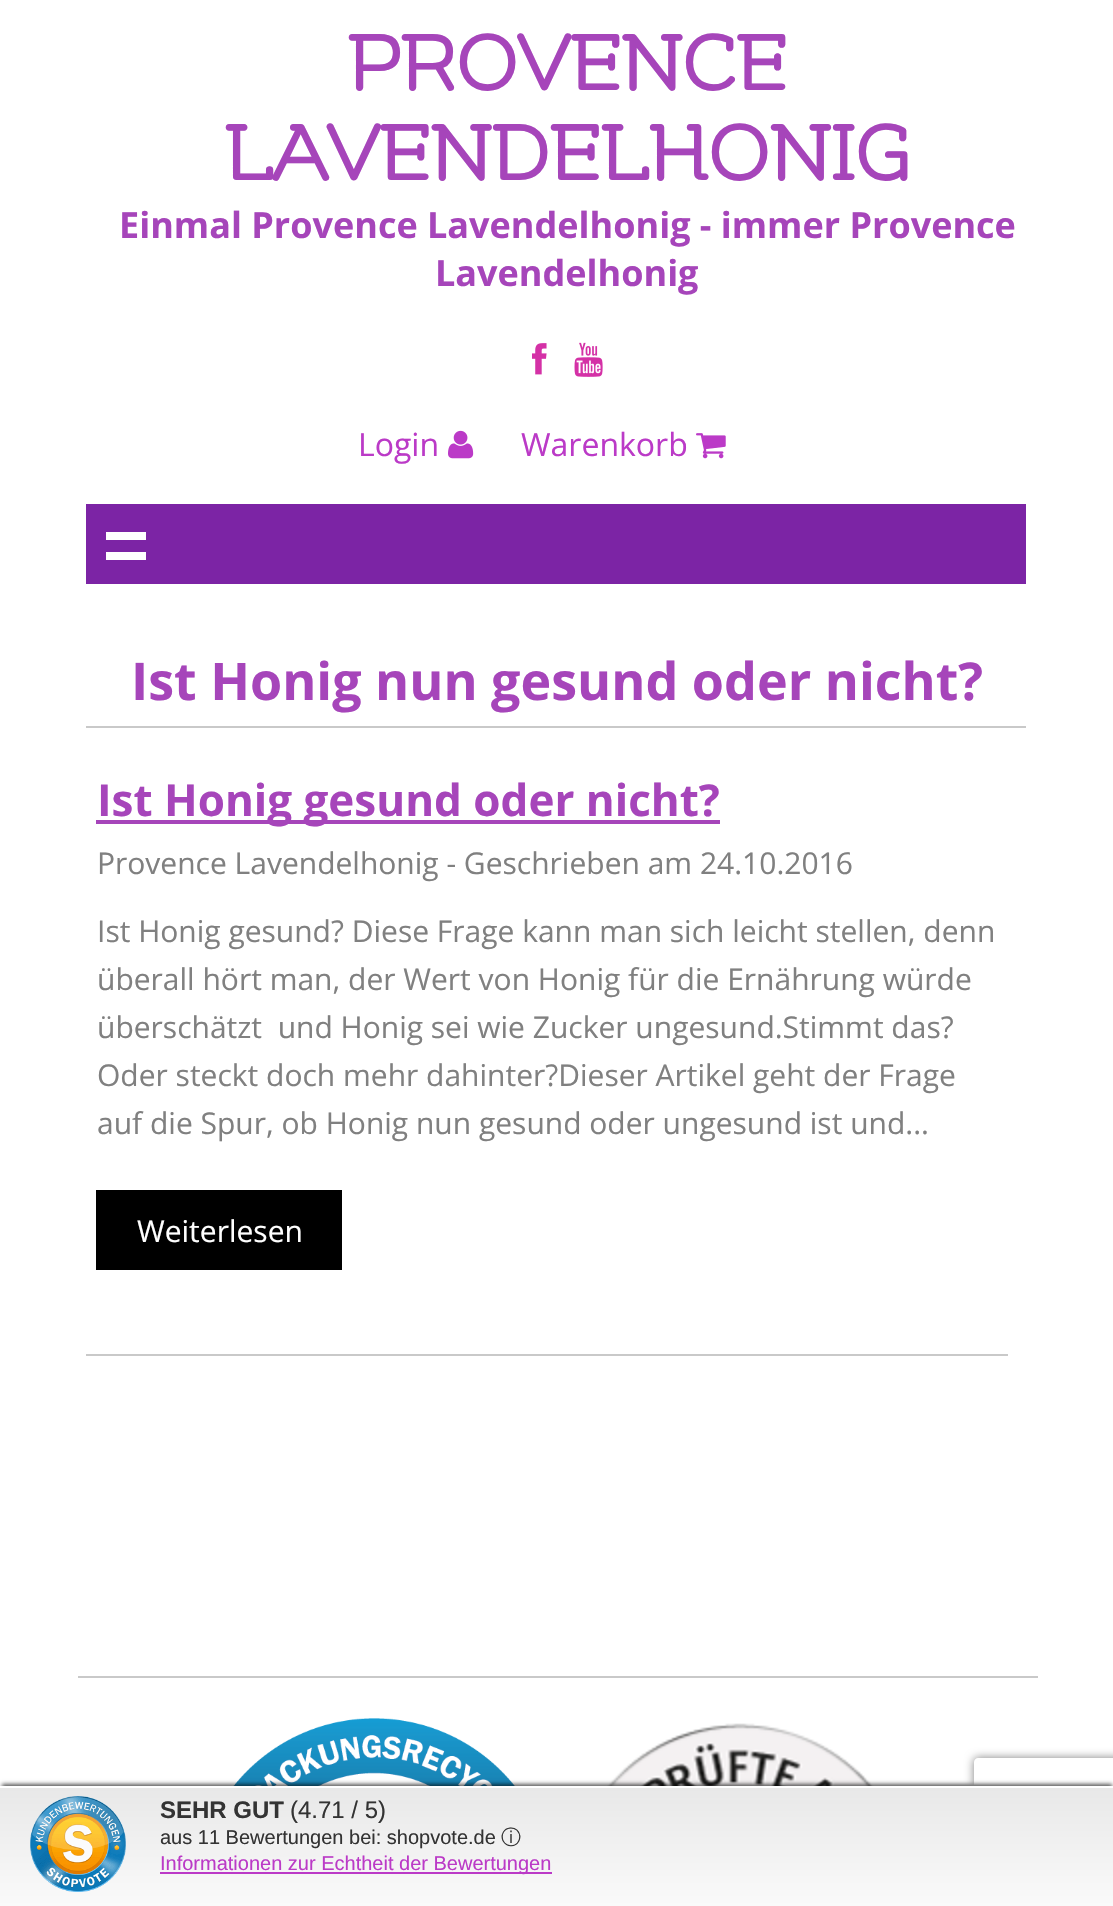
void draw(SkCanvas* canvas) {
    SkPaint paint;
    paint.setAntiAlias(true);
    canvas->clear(0xFFFFFFFF);
    SkFont font1(fontMgr->matchFamilyStyle("Flamenco", SkFontStyle::Bold()), 88);
    font1.setSubpixel(true);
    paint.setColor(0xFFA645BA);
    canvas->drawString("PROVENCE", 347, 90, font1, paint);
    canvas->drawString("LAVENDELHONIG", 224, 180, font1, paint);
    SkFont font2(fontMgr->matchFamilyStyle("Open Sans", SkFontStyle::Bold()), 36);
    font2.setSubpixel(true);
    canvas->drawString("Einmal Provence Lavendelhonig - immer Provence", 119, 238, font2, paint);
    canvas->drawString("Lavendelhonig", 435, 286, font2, paint);
    canvas->drawImageRect(SkImages::DeferredFromEncodedData(SkData::MakeFromFileName("img1.png")), SkRect::MakeXYWH(532, 343, 15, 32), SkSamplingOptions());
    canvas->drawImageRect(SkImages::DeferredFromEncodedData(SkData::MakeFromFileName("img2.png")), SkRect::MakeXYWH(574, 342, 29, 35), SkSamplingOptions());
    SkFont font3(fontMgr->matchFamilyStyle("Open Sans", SkFontStyle::Normal()), 32);
    font3.setSubpixel(true);
    paint.setColor(0xFFBB3AC7);
    canvas->drawString("Login", 358, 456, font3, paint);
    canvas->drawImageRect(SkImages::DeferredFromEncodedData(SkData::MakeFromFileName("img3.png")), SkRect::MakeXYWH(448, 430, 26, 29), SkSamplingOptions());
    canvas->drawString("Warenkorb", 521, 456, font3, paint);
    canvas->drawImageRect(SkImages::DeferredFromEncodedData(SkData::MakeFromFileName("img4.png")), SkRect::MakeXYWH(696, 433, 30, 26), SkSamplingOptions());
    paint.setColor(0xFF7C24A5);
    canvas->drawRect(SkRect::MakeXYWH(86, 504, 940, 80), paint);
    paint.setColor(0xFFFFFFFF);
    canvas->drawRect(SkRect::MakeXYWH(106, 532, 40, 8), paint);
    canvas->drawRect(SkRect::MakeXYWH(106, 552, 40, 8), paint);
    paint.setColor(0xFFC9C9C9);
    canvas->drawRect(SkRect::MakeXYWH(86, 726, 940, 2), paint);
    SkFont font4(fontMgr->matchFamilyStyle("Open Sans", SkFontStyle::Bold()), 52);
    font4.setSubpixel(true);
    paint.setColor(0xFFA645BA);
    canvas->drawString("Ist Honig nun gesund oder nicht?", 131, 700, font4, paint);
    paint.setColor(0xFFC9C9C9);
    canvas->drawRect(SkRect::MakeXYWH(86, 1354, 922, 2), paint);
    paint.setColor(0xFFA645BA);
    canvas->drawRect(SkRect::MakeXYWH(96, 820, 624, 4), paint);
    SkFont font5(fontMgr->matchFamilyStyle("Open Sans", SkFontStyle::Bold()), 44);
    font5.setSubpixel(true);
    canvas->drawString("Ist Honig gesund oder nicht?", 97, 816, font5, paint);
    SkFont font6(fontMgr->matchFamilyStyle("Open Sans", SkFontStyle::Normal()), 30);
    font6.setSubpixel(true);
    paint.setColor(0xFF808080);
    canvas->drawString("Provence Lavendelhonig - Geschrieben am 24.10.2016", 97, 874, font6, paint);
    canvas->drawString("Ist Honig gesund? Diese Frage kann man sich leicht stellen, denn", 97, 942, font6, paint);
    canvas->drawString("überall hört man, der Wert von Honig für die Ernährung würde", 97, 990, font6, paint);
    canvas->drawString("überschätzt  und Honig sei wie Zucker ungesund.Stimmt das?", 97, 1038, font6, paint);
    canvas->drawString("Oder steckt doch mehr dahinter?Dieser Artikel geht der Frage", 97, 1086, font6, paint);
    canvas->drawString("auf die Spur, ob Honig nun gesund oder ungesund ist und...", 97, 1134, font6, paint);
    paint.setColor(0xFF000000);
    canvas->drawRect(SkRect::MakeXYWH(96, 1190, 246, 80), paint);
    paint.setColor(0xFFFFFFFF);
    canvas->drawString("Weiterlesen", 137, 1242, font6, paint);
    paint.setColor(0xFFC9C9C9);
    canvas->drawRect(SkRect::MakeXYWH(78, 1676, 960, 2), paint);
    canvas->drawImageRect(SkImages::DeferredFromEncodedData(SkData::MakeFromFileName("img5.png")), SkRect::MakeXYWH(233, 1718, 282, 68), SkSamplingOptions());
    canvas->drawImageRect(SkImages::DeferredFromEncodedData(SkData::MakeFromFileName("img6.png")), SkRect::MakeXYWH(607, 1723, 267, 63), SkSamplingOptions());
    paint.setColor(0xA6000000);
    paint.setMaskFilter(SkMaskFilter::MakeBlur(kNormal_SkBlurStyle, 2));
    canvas->drawRect(SkRect::MakeXYWH(2, 1784, 1110, 116), paint);
    paint.setMaskFilter(nullptr);
    canvas->save();
    canvas->clipPath(SkPathBuilder(SkPathFillType::kEvenOdd).moveTo(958, 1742).lineTo(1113, 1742).lineTo(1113, 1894).lineTo(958, 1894).close().moveTo(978, 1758).lineTo(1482, 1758).cubicTo(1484, 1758, 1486, 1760, 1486, 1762).lineTo(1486, 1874).cubicTo(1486, 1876, 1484, 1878, 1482, 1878).lineTo(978, 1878).cubicTo(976, 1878, 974, 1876, 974, 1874).lineTo(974, 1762).cubicTo(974, 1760, 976, 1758, 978, 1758).close().detach(), true);
    paint.setColor(0xFF808080);
    paint.setMaskFilter(SkMaskFilter::MakeBlur(kNormal_SkBlurStyle, 5));
    canvas->drawRoundRect(SkRect::MakeXYWH(974, 1758, 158, 120), 4, 4, paint);
    paint.setMaskFilter(nullptr);
    canvas->restore();
    {
        const SkColor colors[] = {0xFFF0F0F0, 0xFFE8E8E8, 0xFFFAFAFA};
        const float stops[] = {0, 0, 1};
        const SkPoint ends[] = {{557, 1788}, {557, 1906}};
        paint.setShader(SkGradientShader::MakeLinear(ends, colors, stops, 3, SkTileMode::kClamp));
        paint.setAlpha(255);
    }
    canvas->drawRect(SkRect::MakeXYWH(0, 1788, 1113, 118), paint);
    paint.setShader(nullptr);
    paint.setColor(0xFFFFFFFF);
    canvas->drawRect(SkRect::MakeXYWH(0, 1786, 1113, 2), paint);
    canvas->drawImageRect(SkImages::DeferredFromEncodedData(SkData::MakeFromFileName("img7.png")), SkRect::MakeXYWH(30, 1796, 96, 96), SkSamplingOptions());
    SkFont font7(fontMgr->matchFamilyStyle("Liberation Sans", SkFontStyle::Bold()), 24);
    font7.setSubpixel(true);
    paint.setColor(0xFF333333);
    canvas->drawString("SEHR GUT", 160, 1818, font7, paint);
    SkFont font8(fontMgr->matchFamilyStyle("Liberation Sans", SkFontStyle::Normal()), 24);
    font8.setSubpixel(true);
    canvas->drawString("(4.71 / 5)", 290, 1818, font8, paint);
    SkFont font9(fontMgr->matchFamilyStyle("Liberation Sans", SkFontStyle::Normal()), 20);
    font9.setSubpixel(true);
    canvas->drawString("aus 11 Bewertungen bei: shopvote.de", 160, 1844, font9, paint);
    SkFont font10(fontMgr->matchFamilyStyle("WenQuanYi Zen Hei", SkFontStyle(500, SkFontStyle::kNormal_Width, SkFontStyle::kUpright_Slant)), 20);
    font10.setSubpixel(true);
    canvas->drawString("ⓘ", 501, 1844, font10, paint);
    paint.setColor(0xFFBB3AC7);
    canvas->drawRect(SkRect::MakeXYWH(160, 1872, 392, 2), paint);
    canvas->drawString("Informationen zur Echtheit der Bewertungen", 160, 1870, font9, paint);
}
